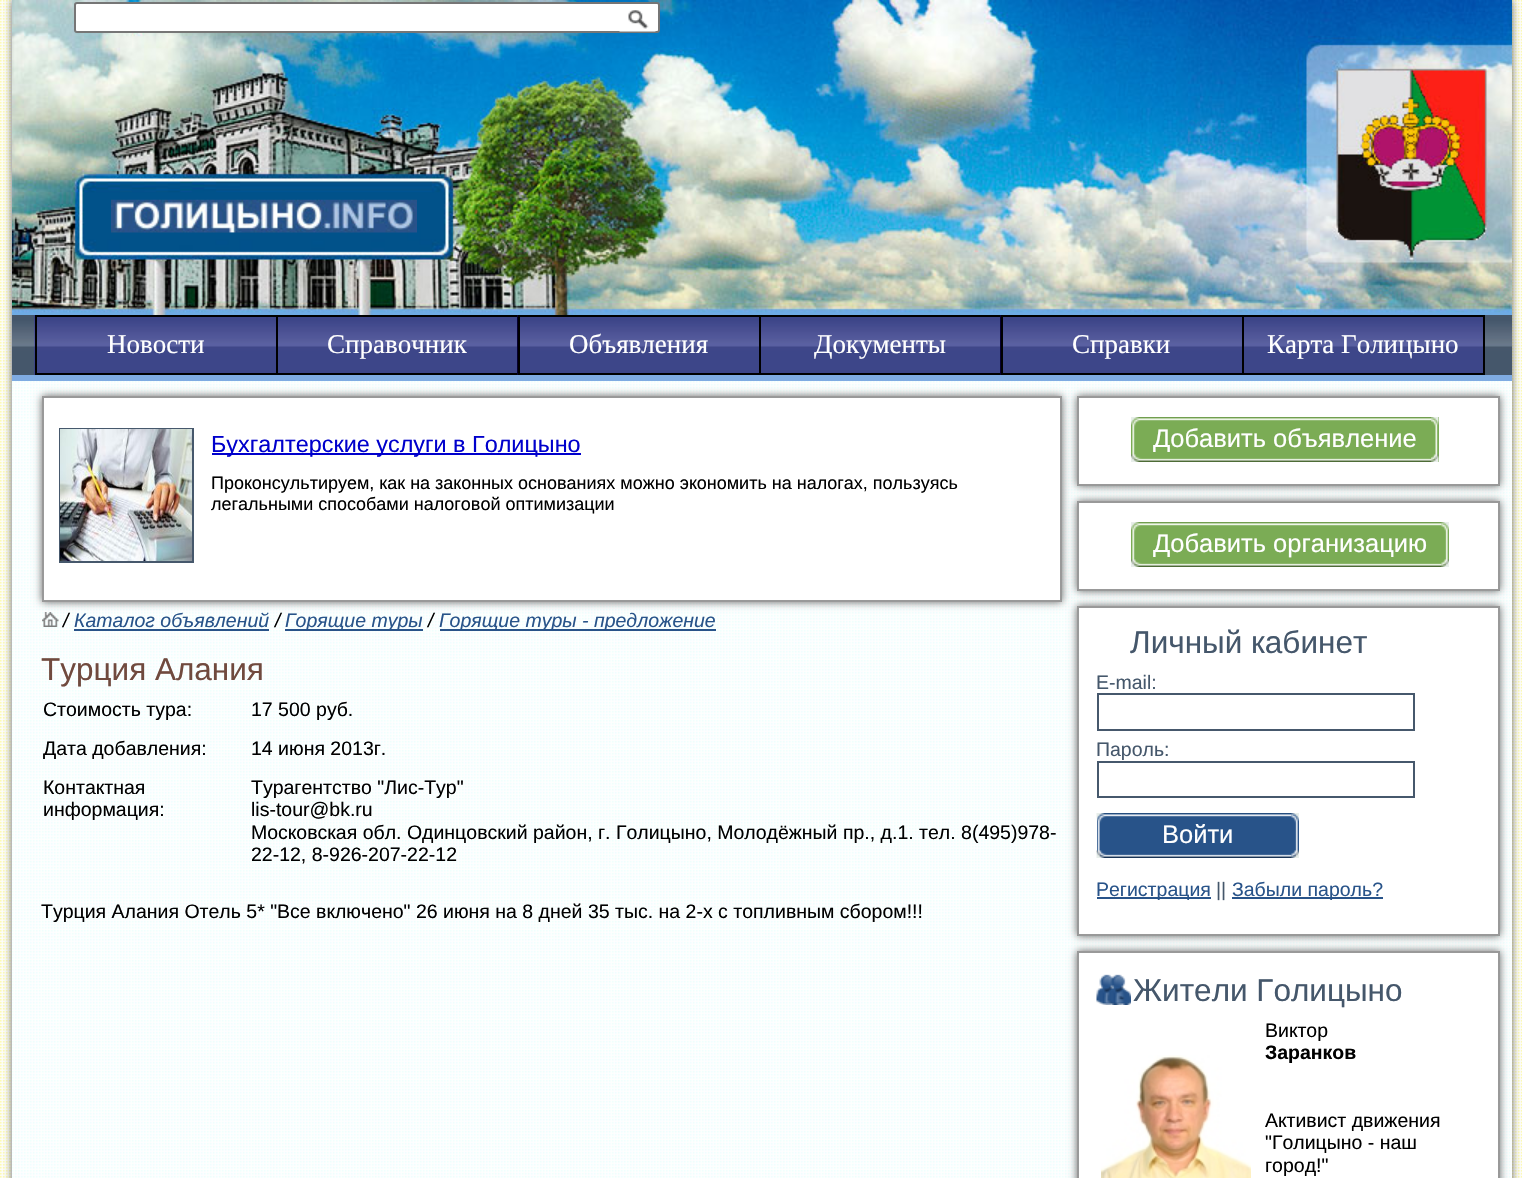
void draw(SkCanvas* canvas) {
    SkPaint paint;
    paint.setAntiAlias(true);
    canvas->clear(0xFFFFFFFF);
    canvas->drawImageRect(SkImages::DeferredFromEncodedData(SkData::MakeFromFileName("img1.png")), SkRect::MakeXYWH(0, 0, 1522, 1178), SkSamplingOptions());
    paint.setColor(0xFF666666);
    paint.setMaskFilter(SkMaskFilter::MakeBlur(kNormal_SkBlurStyle, 4));
    canvas->drawRect(SkRect::MakeXYWH(12, 0, 1500, 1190), paint);
    paint.setMaskFilter(nullptr);
    canvas->drawImageRect(SkImages::DeferredFromEncodedData(SkData::MakeFromFileName("img2.png")), SkRect::MakeXYWH(12, 381, 1500, 797), SkSamplingOptions());
    paint.setColor(0xFF7FABE2);
    canvas->drawRect(SkRect::MakeXYWH(12, 375, 1500, 6), paint);
    canvas->drawImageRect(SkImages::DeferredFromEncodedData(SkData::MakeFromFileName("img3.png")), SkRect::MakeXYWH(12, 0, 1500, 315), SkSamplingOptions());
    paint.setColor(0xFFFFFFFF);
    canvas->drawRoundRect(SkRect::MakeXYWH(75, 3, 584, 29), 2, 2, paint);
    paint.setStyle(SkPaint::kStroke_Style);
    paint.setStrokeWidth(2);
    paint.setColor(0xFF767676);
    canvas->drawRoundRect(SkRect::MakeXYWH(75, 3, 584, 29), 2, 2, paint);
    canvas->drawImageRect(SkImages::DeferredFromEncodedData(SkData::MakeFromFileName("img4.png")), SkRect::MakeXYWH(619, 10, 37, 22), SkSamplingOptions());
    canvas->drawImageRect(SkImages::DeferredFromEncodedData(SkData::MakeFromFileName("img5.png")), SkRect::MakeXYWH(111, 199, 306, 34), SkSamplingOptions());
    canvas->drawImageRect(SkImages::DeferredFromEncodedData(SkData::MakeFromFileName("img6.png")), SkRect::MakeXYWH(12, 315, 1500, 60), SkSamplingOptions());
    paint.setStyle(SkPaint::kFill_Style);
    paint.setColor(0x331E00FF);
    canvas->drawRect(SkRect::MakeXYWH(34, 315, 242, 60), paint);
    paint.setStyle(SkPaint::kStroke_Style);
    paint.setColor(0xFF000000);
    canvas->drawRect(SkRect::MakeXYWH(36, 316, 241, 58), paint);
    SkFont font1(fontMgr->matchFamilyStyle("Liberation Serif", SkFontStyle::Normal()), 27);
    font1.setSubpixel(true);
    paint.setStyle(SkPaint::kFill_Style);
    paint.setColor(0xFFFFFFFF);
    canvas->drawString("Новости", 107, 353, font1, paint);
    paint.setColor(0x331E00FF);
    canvas->drawRect(SkRect::MakeXYWH(277, 316, 241, 58), paint);
    paint.setStyle(SkPaint::kStroke_Style);
    paint.setColor(0xFF000000);
    canvas->drawRect(SkRect::MakeXYWH(277, 316, 241, 58), paint);
    paint.setStyle(SkPaint::kFill_Style);
    paint.setColor(0xFFFFFFFF);
    canvas->drawString("Справочник", 327, 353, font1, paint);
    paint.setColor(0x331E00FF);
    canvas->drawRect(SkRect::MakeXYWH(517, 315, 242, 60), paint);
    paint.setStyle(SkPaint::kStroke_Style);
    paint.setColor(0xFF000000);
    canvas->drawRect(SkRect::MakeXYWH(519, 316, 241, 58), paint);
    paint.setStyle(SkPaint::kFill_Style);
    paint.setColor(0xFFFFFFFF);
    canvas->drawString("Объявления", 569, 353, font1, paint);
    paint.setColor(0x331E00FF);
    canvas->drawRect(SkRect::MakeXYWH(760, 316, 241, 58), paint);
    paint.setStyle(SkPaint::kStroke_Style);
    paint.setColor(0xFF000000);
    canvas->drawRect(SkRect::MakeXYWH(760, 316, 241, 58), paint);
    paint.setStyle(SkPaint::kFill_Style);
    paint.setColor(0xFFFFFFFF);
    canvas->drawString("Документы", 814, 353, font1, paint);
    paint.setColor(0x331E00FF);
    canvas->drawRect(SkRect::MakeXYWH(1000, 315, 242, 60), paint);
    paint.setStyle(SkPaint::kStroke_Style);
    paint.setColor(0xFF000000);
    canvas->drawRect(SkRect::MakeXYWH(1002, 316, 241, 58), paint);
    paint.setStyle(SkPaint::kFill_Style);
    paint.setColor(0xFFFFFFFF);
    canvas->drawString("Справки", 1072, 353, font1, paint);
    paint.setColor(0x331E00FF);
    canvas->drawRect(SkRect::MakeXYWH(1243, 316, 241, 58), paint);
    paint.setStyle(SkPaint::kStroke_Style);
    paint.setColor(0xFF000000);
    canvas->drawRect(SkRect::MakeXYWH(1243, 316, 241, 58), paint);
    paint.setStyle(SkPaint::kFill_Style);
    paint.setColor(0xFFFFFFFF);
    canvas->drawString("Карта Голицыно", 1267, 353, font1, paint);
    canvas->drawImageRect(SkImages::DeferredFromEncodedData(SkData::MakeFromFileName("img8.png")), SkRect::MakeXYWH(42, 612, 17, 15), SkSamplingOptions());
    paint.setColor(0xFF666666);
    paint.setMaskFilter(SkMaskFilter::MakeBlur(kNormal_SkBlurStyle, 4));
    canvas->drawRect(SkRect::MakeXYWH(42, 396, 1020, 206), paint);
    paint.setMaskFilter(nullptr);
    paint.setColor(0xFFFFFFFF);
    canvas->drawRect(SkRect::MakeXYWH(43, 397, 1018, 204), paint);
    paint.setStyle(SkPaint::kStroke_Style);
    paint.setColor(0xFF999999);
    canvas->drawRect(SkRect::MakeXYWH(43, 397, 1018, 204), paint);
    paint.setColor(0xFF46586C);
    canvas->drawRect(SkRect::MakeXYWH(60, 429, 133, 133), paint);
    canvas->drawImageRect(SkImages::DeferredFromEncodedData(SkData::MakeFromFileName("img7.png")), SkRect::MakeXYWH(60, 429, 132, 132), SkSamplingOptions());
    paint.setStyle(SkPaint::kFill_Style);
    paint.setColor(0xFF0000CC);
    canvas->drawRect(SkRect::MakeXYWH(212, 453, 369, 2), paint);
    SkFont font2(fontMgr->matchFamilyStyle("Liberation Sans", SkFontStyle::Normal()), 23.4f);
    font2.setSubpixel(true);
    canvas->drawString("Бухгалтерские услуги в Голицыно", 211, 452, font2, paint);
    SkFont font3(fontMgr->matchFamilyStyle("Liberation Sans", SkFontStyle::Normal()), 18);
    font3.setSubpixel(true);
    paint.setColor(0xFF000000);
    canvas->drawString("Проконсультируем, как на законных основаниях можно экономить на налогах, пользуясь", 211, 489, font3, paint);
    canvas->drawString("легальными способами налоговой оптимизации", 211, 510, font3, paint);
    SkFont font4(fontMgr->matchFamilyStyle("Liberation Sans", SkFontStyle::Italic()), 19.5f);
    font4.setSubpixel(true);
    canvas->drawString("/", 63, 627, font4, paint);
    paint.setColor(0xFF285389);
    canvas->drawString("Каталог объявлений", 74, 627, font4, paint);
    canvas->drawRect(SkRect::MakeXYWH(74, 629, 195, 2), paint);
    paint.setColor(0xFF000000);
    canvas->drawString("/", 275, 627, font4, paint);
    paint.setColor(0xFF285389);
    canvas->drawRect(SkRect::MakeXYWH(285, 629, 138, 2), paint);
    canvas->drawString("Горящие туры", 285, 627, font4, paint);
    paint.setColor(0xFF000000);
    canvas->drawString("/", 428, 627, font4, paint);
    paint.setColor(0xFF285389);
    canvas->drawRect(SkRect::MakeXYWH(440, 629, 276, 2), paint);
    canvas->drawString("Горящие туры - предложение", 439, 627, font4, paint);
    SkFont font5(fontMgr->matchFamilyStyle("Liberation Sans", SkFontStyle::Normal()), 31.5f);
    font5.setSubpixel(true);
    paint.setColor(0xFF704A3E);
    canvas->drawString("Турция Алания", 41, 680, font5, paint);
    SkFont font6(fontMgr->matchFamilyStyle("Liberation Sans", SkFontStyle::Normal()), 19.5f);
    font6.setSubpixel(true);
    paint.setColor(0xFF000000);
    canvas->drawString("Стоимость тура:", 43, 716, font6, paint);
    canvas->drawString("17 500 руб.", 251, 716, font6, paint);
    canvas->drawString("Дата добавления:", 43, 755, font6, paint);
    canvas->drawString("14 июня 2013г.", 251, 755, font6, paint);
    canvas->drawString("Контактная", 43, 794, font6, paint);
    canvas->drawString("информация:", 43, 816, font6, paint);
    canvas->drawString("Турагентство \"Лис-Тур\"", 251, 794, font6, paint);
    canvas->drawString("lis-tour@bk.ru", 251, 816, font6, paint);
    canvas->drawString("Московская обл. Одинцовский район, г. Голицыно, Молодёжный пр., д.1. тел. 8(495)978-", 251, 839, font6, paint);
    canvas->drawString("22-12, 8-926-207-22-12", 251, 861, font6, paint);
    canvas->drawString("Турция Алания Отель 5* \"Все включено\" 26 июня на 8 дней 35 тыс. на 2-х с топливным сбором!!!", 41, 918, font6, paint);
    paint.setColor(0xFF666666);
    paint.setMaskFilter(SkMaskFilter::MakeBlur(kNormal_SkBlurStyle, 4));
    canvas->drawRect(SkRect::MakeXYWH(1077, 396, 423, 90), paint);
    paint.setMaskFilter(nullptr);
    paint.setColor(0xFFFFFFFF);
    canvas->drawRect(SkRect::MakeXYWH(1078, 397, 421, 88), paint);
    paint.setStyle(SkPaint::kStroke_Style);
    paint.setColor(0xFF999999);
    canvas->drawRect(SkRect::MakeXYWH(1078, 397, 421, 88), paint);
    paint.setStyle(SkPaint::kFill_Style);
    paint.setColor(0xFF7BAC55);
    canvas->drawRect(SkRect::MakeXYWH(1131, 417, 308, 45), paint);
    SkFont font7(fontMgr->matchFamilyStyle("Liberation Sans", SkFontStyle::Normal()), 25.5f);
    font7.setSubpixel(true);
    paint.setColor(0xFFFFFFFF);
    canvas->drawString("Добавить объявление", 1153, 447, font7, paint);
    canvas->drawImageRect(SkImages::DeferredFromEncodedData(SkData::MakeFromFileName("img9.png")), SkRect::MakeXYWH(1131, 417, 300, 44), SkSamplingOptions());
    canvas->drawImageRect(SkImages::DeferredFromEncodedData(SkData::MakeFromFileName("img10.png")), SkRect::MakeXYWH(1431, 417, 8, 44), SkSamplingOptions());
    canvas->drawImageRect(SkImages::DeferredFromEncodedData(SkData::MakeFromFileName("img11.png")), SkRect::MakeXYWH(1131, 454, 300, 8), SkSamplingOptions());
    canvas->drawImageRect(SkImages::DeferredFromEncodedData(SkData::MakeFromFileName("img12.png")), SkRect::MakeXYWH(1431, 454, 8, 8), SkSamplingOptions());
    paint.setColor(0xFF666666);
    paint.setMaskFilter(SkMaskFilter::MakeBlur(kNormal_SkBlurStyle, 4));
    canvas->drawRect(SkRect::MakeXYWH(1077, 501, 423, 90), paint);
    paint.setMaskFilter(nullptr);
    paint.setColor(0xFFFFFFFF);
    canvas->drawRect(SkRect::MakeXYWH(1078, 502, 421, 88), paint);
    paint.setStyle(SkPaint::kStroke_Style);
    paint.setColor(0xFF999999);
    canvas->drawRect(SkRect::MakeXYWH(1078, 502, 421, 88), paint);
    paint.setStyle(SkPaint::kFill_Style);
    paint.setColor(0xFF7BAC55);
    canvas->drawRect(SkRect::MakeXYWH(1131, 522, 318, 45), paint);
    paint.setColor(0xFFFFFFFF);
    canvas->drawString("Добавить организацию", 1153, 552, font7, paint);
    canvas->drawImageRect(SkImages::DeferredFromEncodedData(SkData::MakeFromFileName("img13.png")), SkRect::MakeXYWH(1131, 522, 311, 44), SkSamplingOptions());
    canvas->drawImageRect(SkImages::DeferredFromEncodedData(SkData::MakeFromFileName("img14.png")), SkRect::MakeXYWH(1441, 522, 8, 44), SkSamplingOptions());
    canvas->drawImageRect(SkImages::DeferredFromEncodedData(SkData::MakeFromFileName("img15.png")), SkRect::MakeXYWH(1131, 559, 311, 8), SkSamplingOptions());
    canvas->drawImageRect(SkImages::DeferredFromEncodedData(SkData::MakeFromFileName("img16.png")), SkRect::MakeXYWH(1441, 559, 8, 8), SkSamplingOptions());
    paint.setColor(0xFF666666);
    paint.setMaskFilter(SkMaskFilter::MakeBlur(kNormal_SkBlurStyle, 4));
    canvas->drawRect(SkRect::MakeXYWH(1077, 606, 423, 330), paint);
    paint.setMaskFilter(nullptr);
    paint.setColor(0xFFFFFFFF);
    canvas->drawRect(SkRect::MakeXYWH(1078, 607, 421, 328), paint);
    paint.setStyle(SkPaint::kStroke_Style);
    paint.setColor(0xFF999999);
    canvas->drawRect(SkRect::MakeXYWH(1078, 607, 421, 328), paint);
    paint.setStyle(SkPaint::kFill_Style);
    paint.setColor(0xFF45576B);
    canvas->drawString("Личный кабинет", 1130, 653, font5, paint);
    canvas->drawString("E-mail:", 1096, 689, font6, paint);
    paint.setStyle(SkPaint::kStroke_Style);
    paint.setColor(0xFF46586C);
    canvas->drawRect(SkRect::MakeXYWH(1098, 694, 316, 36), paint);
    paint.setStyle(SkPaint::kFill_Style);
    paint.setColor(0xFF45576B);
    canvas->drawString("Пароль:", 1096, 756, font6, paint);
    paint.setStyle(SkPaint::kStroke_Style);
    paint.setColor(0xFF46586C);
    canvas->drawRect(SkRect::MakeXYWH(1098, 762, 316, 35), paint);
    paint.setStyle(SkPaint::kFill_Style);
    paint.setColor(0xFF285389);
    canvas->drawRect(SkRect::MakeXYWH(1097, 813, 202, 45), paint);
    paint.setColor(0xFFFFFFFF);
    canvas->drawString("Войти", 1162, 843, font7, paint);
    canvas->drawImageRect(SkImages::DeferredFromEncodedData(SkData::MakeFromFileName("img17.png")), SkRect::MakeXYWH(1096, 813, 196, 44), SkSamplingOptions());
    canvas->drawImageRect(SkImages::DeferredFromEncodedData(SkData::MakeFromFileName("img18.png")), SkRect::MakeXYWH(1291, 813, 8, 44), SkSamplingOptions());
    canvas->drawImageRect(SkImages::DeferredFromEncodedData(SkData::MakeFromFileName("img19.png")), SkRect::MakeXYWH(1096, 850, 196, 8), SkSamplingOptions());
    canvas->drawImageRect(SkImages::DeferredFromEncodedData(SkData::MakeFromFileName("img20.png")), SkRect::MakeXYWH(1291, 850, 8, 8), SkSamplingOptions());
    paint.setColor(0xFF285389);
    canvas->drawRect(SkRect::MakeXYWH(1097, 897, 114, 2), paint);
    canvas->drawString("Регистрация", 1096, 896, font6, paint);
    paint.setColor(0xFF45576B);
    canvas->drawString("||", 1216, 896, font6, paint);
    paint.setColor(0xFF285389);
    canvas->drawRect(SkRect::MakeXYWH(1232, 897, 151, 2), paint);
    canvas->drawString("Забыли пароль?", 1232, 896, font6, paint);
    paint.setColor(0xFF666666);
    paint.setMaskFilter(SkMaskFilter::MakeBlur(kNormal_SkBlurStyle, 4));
    canvas->drawRect(SkRect::MakeXYWH(1077, 951, 423, 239), paint);
    paint.setMaskFilter(nullptr);
    paint.setColor(0xFFFFFFFF);
    canvas->drawRect(SkRect::MakeXYWH(1078, 952, 421, 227), paint);
    paint.setStyle(SkPaint::kStroke_Style);
    paint.setColor(0xFF999999);
    canvas->drawRect(SkRect::MakeXYWH(1078, 952, 421, 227), paint);
    canvas->drawImageRect(SkImages::DeferredFromEncodedData(SkData::MakeFromFileName("img21.png")), SkRect::MakeXYWH(1096, 974, 35, 31), SkSamplingOptions());
    paint.setStyle(SkPaint::kFill_Style);
    paint.setColor(0xFF45576B);
    canvas->drawString("Жители Голицыно", 1133, 1001, font5, paint);
    paint.setColor(0xFF000000);
    canvas->drawString("Виктор", 1265, 1037, font6, paint);
    canvas->drawImageRect(SkImages::DeferredFromEncodedData(SkData::MakeFromFileName("img22.png")), SkRect::MakeXYWH(1101, 1055, 150, 123), SkSamplingOptions());
    SkFont font8(fontMgr->matchFamilyStyle("Liberation Sans", SkFontStyle::Bold()), 19.5f);
    font8.setSubpixel(true);
    canvas->drawString("Заранков", 1265, 1059, font8, paint);
    canvas->drawString("Активист движения", 1265, 1127, font6, paint);
    canvas->drawString("\"Голицыно - наш", 1265, 1149, font6, paint);
    canvas->drawString("город!\"", 1265, 1172, font6, paint);
}
